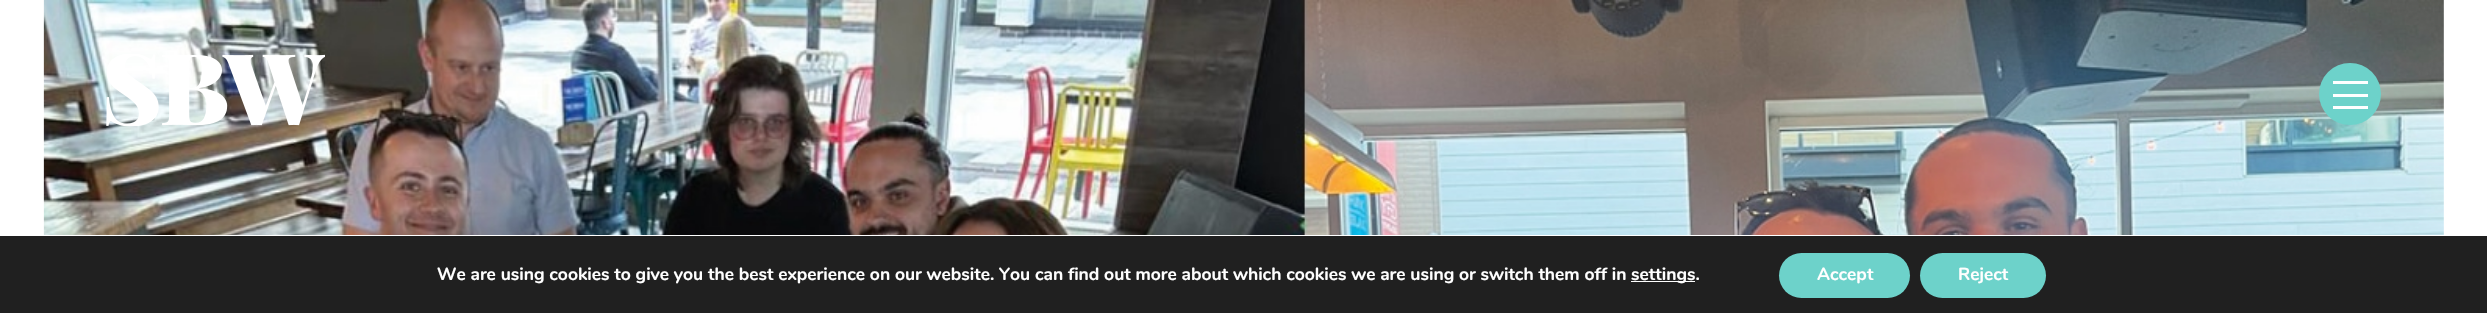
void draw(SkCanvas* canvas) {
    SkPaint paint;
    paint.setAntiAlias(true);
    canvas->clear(0xFFFFFFFF);
    canvas->drawImageRect(SkImages::DeferredFromEncodedData(SkData::MakeFromFileName("img1.png")), SkRect::MakeXYWH(43, 0, 2401, 235), SkSamplingOptions());
    canvas->drawImageRect(SkImages::DeferredFromEncodedData(SkData::MakeFromFileName("img2.png")), SkRect::MakeXYWH(43, 0, 2401, 235), SkSamplingOptions());
    canvas->drawImageRect(SkImages::DeferredFromEncodedData(SkData::MakeFromFileName("img3.png")), SkRect::MakeXYWH(106, 54, 219, 72), SkSamplingOptions());
    paint.setColor(0xFF6DD2CA);
    canvas->drawCircle(2350, 94, 31, paint);
    paint.setColor(0xFFFFFFFF);
    canvas->drawRect(SkRect::MakeXYWH(2333, 81, 35, 3), paint);
    canvas->drawRect(SkRect::MakeXYWH(2333, 94, 35, 3), paint);
    canvas->drawRect(SkRect::MakeXYWH(2333, 106, 35, 3), paint);
    paint.setColor(0xFF202020);
    canvas->drawRect(SkRect::MakeXYWH(0, 236, 2487, 77), paint);
    SkFont font1(fontMgr->matchFamilyStyle("Nunito", SkFontStyle::Bold()), 17.5f);
    font1.setSubpixel(true);
    paint.setColor(0xFFFFFFFF);
    canvas->drawString("We are using cookies to give you the best experience on our website. You can find out more about which cookies we are using or switch them off in", 437, 280, font1, paint);
    canvas->drawRect(SkRect::MakeXYWH(1631, 281, 64, 1), paint);
    canvas->drawString("settings.", 1631, 280, font1, paint);
    paint.setColor(0xFF6DD2CA);
    canvas->drawRoundRect(SkRect::MakeXYWH(1779, 253, 131, 45), 22.5f, 22.5f, paint);
    paint.setColor(0xFFFFFFFF);
    canvas->drawString("Accept", 1817, 280, font1, paint);
    paint.setColor(0xFF6DD2CA);
    canvas->drawRoundRect(SkRect::MakeXYWH(1920, 253, 126, 45), 22.5f, 22.5f, paint);
    paint.setColor(0xFFFFFFFF);
    canvas->drawString("Reject", 1958, 280, font1, paint);
}
